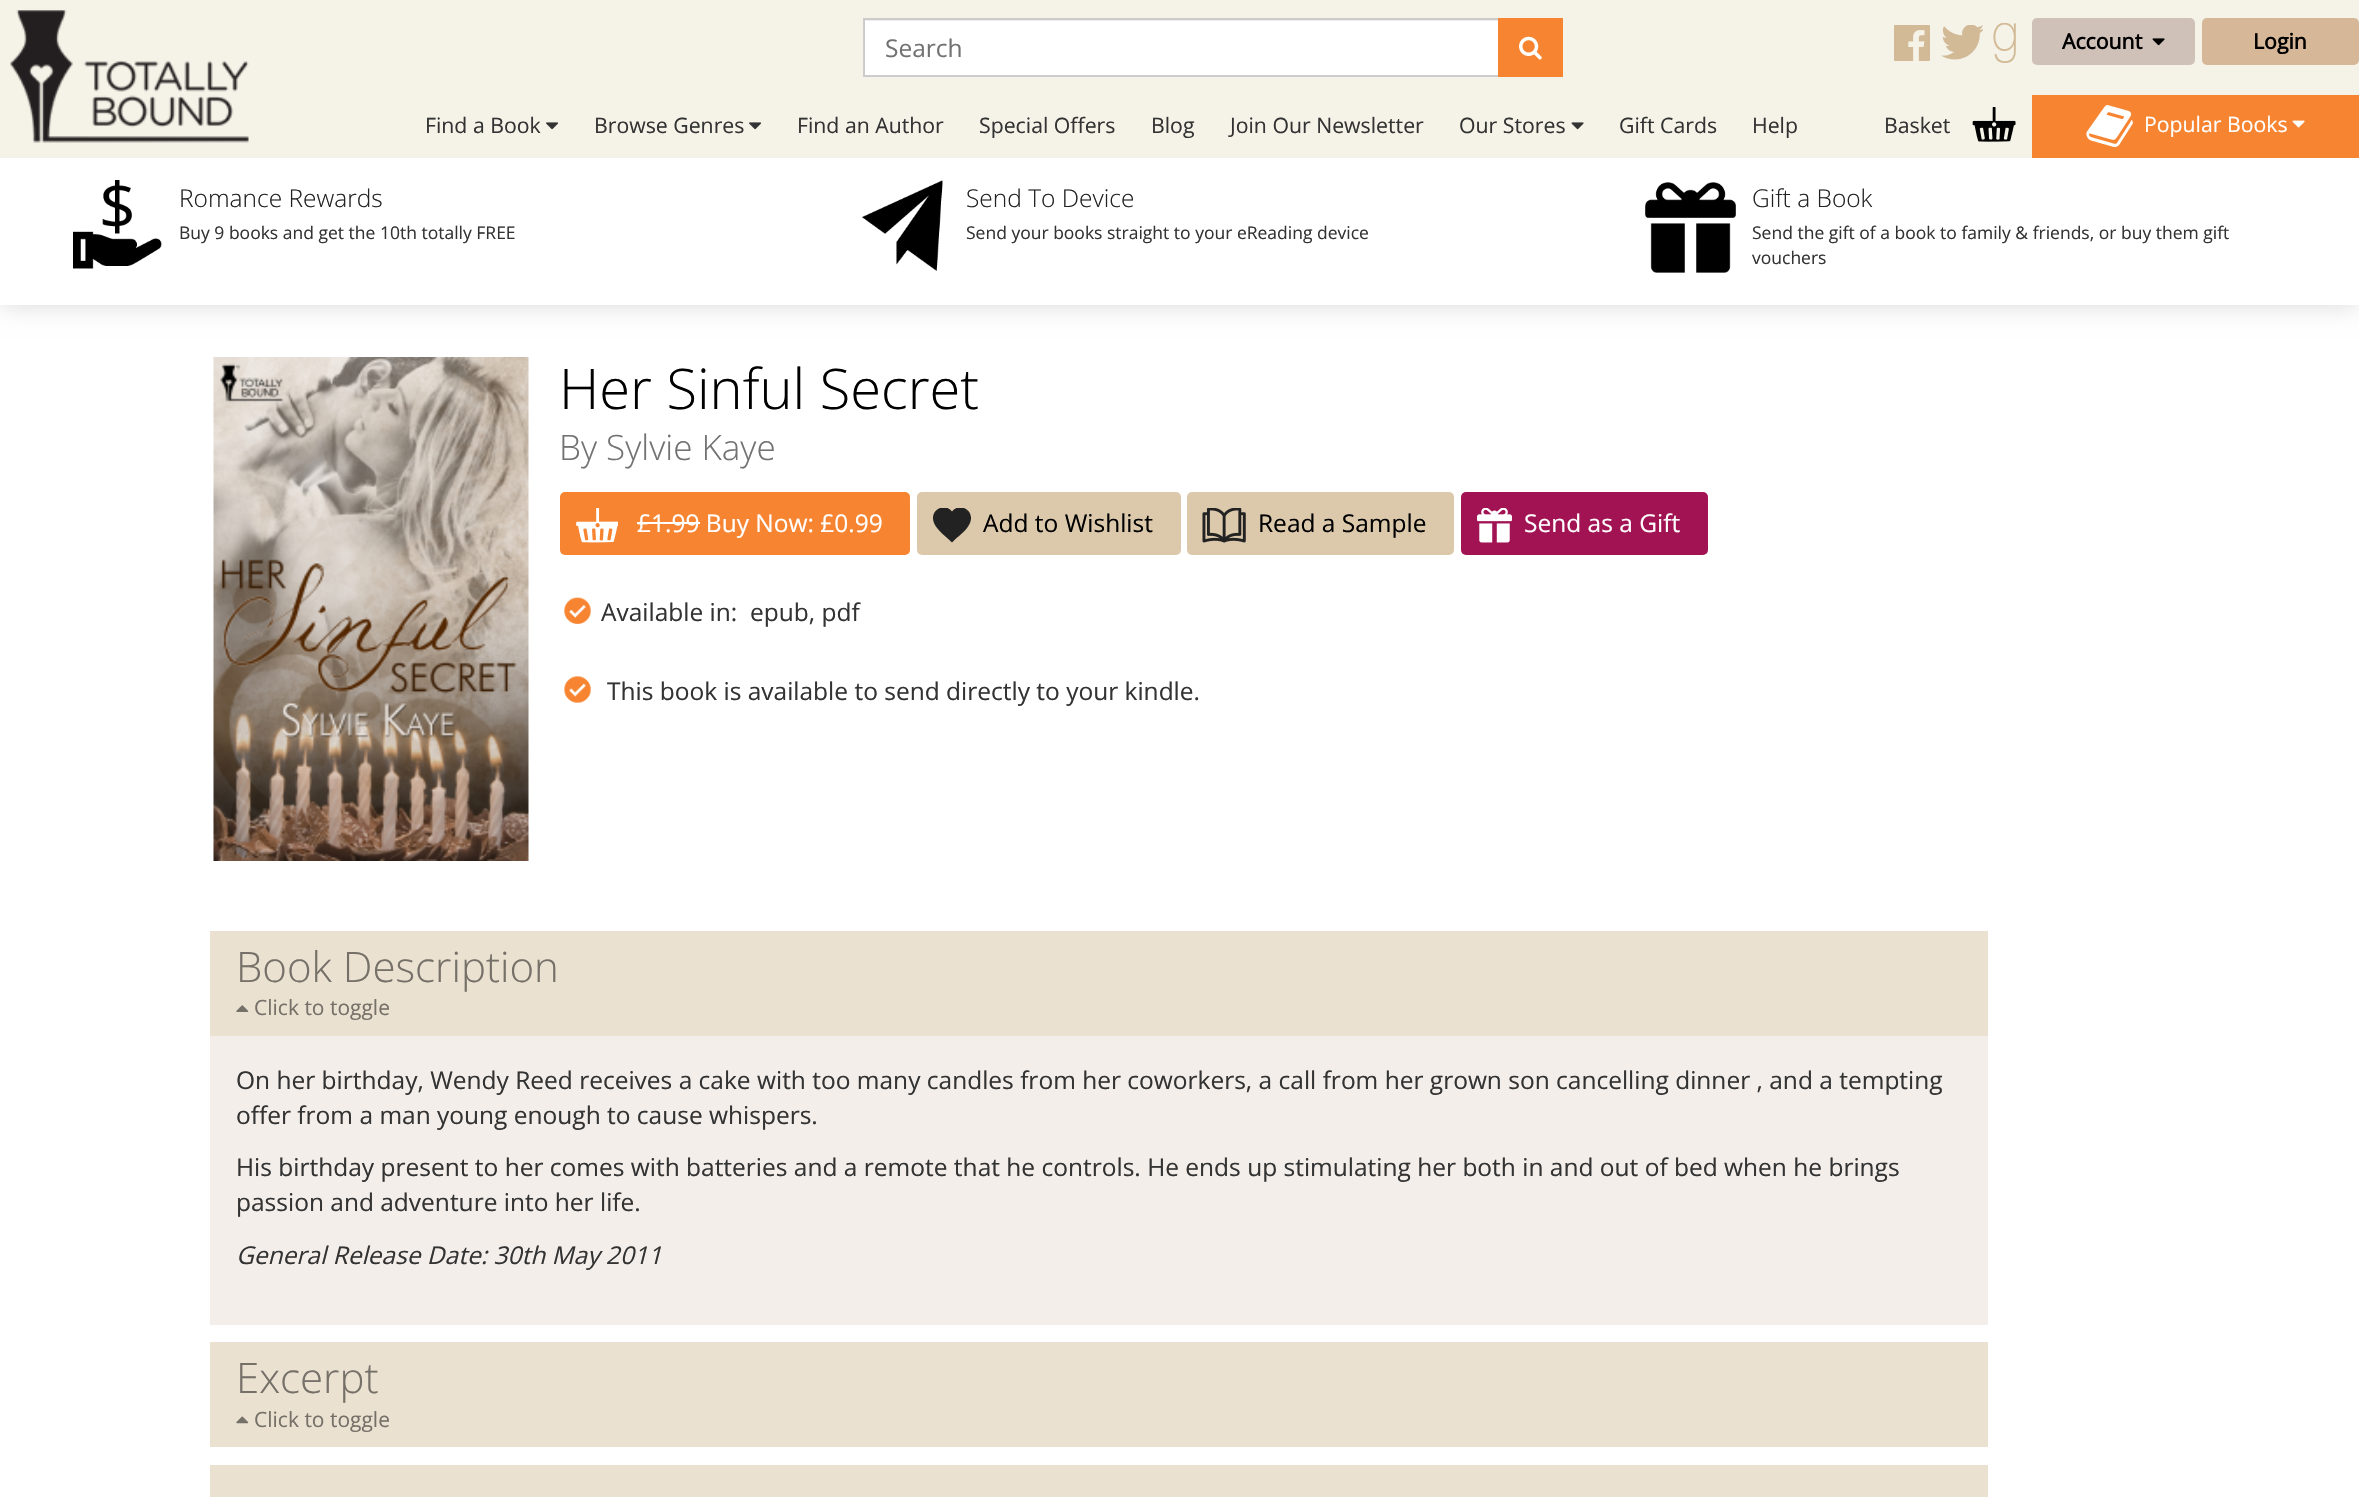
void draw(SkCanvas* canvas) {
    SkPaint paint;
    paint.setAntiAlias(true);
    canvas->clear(0xFFFFFFFF);
    canvas->save();
    canvas->clipPath(SkPathBuilder(SkPathFillType::kEvenOdd).moveTo(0, 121).lineTo(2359, 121).lineTo(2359, 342).lineTo(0, 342).close().moveTo(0, 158).lineTo(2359, 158).lineTo(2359, 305).lineTo(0, 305).close().detach(), true);
    paint.setColor(0x26000000);
    paint.setMaskFilter(SkMaskFilter::MakeBlur(kNormal_SkBlurStyle, 12));
    canvas->drawRect(SkRect::MakeXYWH(0, 158, 2359, 147), paint);
    paint.setMaskFilter(nullptr);
    canvas->restore();
    paint.setColor(0xFFF5F3E8);
    canvas->drawRect(SkRect::MakeXYWH(0, 0, 2359, 158), paint);
    canvas->drawImageRect(SkImages::DeferredFromEncodedData(SkData::MakeFromFileName("img1.png")), SkRect::MakeXYWH(10, 10, 239, 133), SkSamplingOptions());
    paint.setColor(0xFFFFFFFF);
    canvas->drawRect(SkRect::MakeXYWH(865, 21, 633, 54), paint);
    paint.setColor(0xFFECECEC);
    canvas->drawRect(SkRect::MakeXYWH(865, 20, 633, 1), paint);
    paint.setColor(0xFFCCCCCC);
    canvas->drawRect(SkRect::MakeXYWH(863, 18, 635, 2), paint);
    canvas->drawRect(SkRect::MakeXYWH(863, 75, 635, 2), paint);
    canvas->drawRect(SkRect::MakeXYWH(863, 18, 2, 59), paint);
    SkFont font1(fontMgr->matchFamilyStyle("Open Sans", SkFontStyle::Normal()), 24.5f);
    font1.setSubpixel(true);
    paint.setColor(0xFF727272);
    canvas->drawString("Search", 885, 57, font1, paint);
    paint.setColor(0xFFF78430);
    canvas->drawRect(SkRect::MakeXYWH(1498, 18, 65, 59), paint);
    canvas->drawImageRect(SkImages::DeferredFromEncodedData(SkData::MakeFromFileName("img2.png")), SkRect::MakeXYWH(1519, 36, 23, 24), SkSamplingOptions());
    canvas->drawImageRect(SkImages::DeferredFromEncodedData(SkData::MakeFromFileName("img3.png")), SkRect::MakeXYWH(1894, 25, 36, 36), SkSamplingOptions());
    canvas->drawImageRect(SkImages::DeferredFromEncodedData(SkData::MakeFromFileName("img4.png")), SkRect::MakeXYWH(1941, 25, 42, 35), SkSamplingOptions());
    canvas->drawImageRect(SkImages::DeferredFromEncodedData(SkData::MakeFromFileName("img5.png")), SkRect::MakeXYWH(1993, 23, 23, 40), SkSamplingOptions());
    paint.setColor(0xFFCFC1B7);
    canvas->drawRoundRect(SkRect::MakeXYWH(2032, 18, 163, 47), 5, 5, paint);
    SkFont font2(fontMgr->matchFamilyStyle("Open Sans", SkFontStyle::Bold()), 21.25f);
    font2.setSubpixel(true);
    paint.setColor(0xFF000000);
    canvas->drawString("Account", 2062, 49, font2, paint);
    canvas->drawImageRect(SkImages::DeferredFromEncodedData(SkData::MakeFromFileName("img6.png")), SkRect::MakeXYWH(2152, 38, 13, 8), SkSamplingOptions());
    paint.setColor(0xFFD6B898);
    canvas->drawRoundRect(SkRect::MakeXYWH(2202, 18, 157, 47), 5, 5, paint);
    paint.setColor(0xFF000000);
    canvas->drawString("Login", 2253, 49, font2, paint);
    SkFont font3(fontMgr->matchFamilyStyle("Open Sans", SkFontStyle::Normal()), 21.25f);
    font3.setSubpixel(true);
    paint.setColor(0xFF333333);
    canvas->drawString("Find a Book", 425, 133, font3, paint);
    canvas->drawImageRect(SkImages::DeferredFromEncodedData(SkData::MakeFromFileName("img7.png")), SkRect::MakeXYWH(546, 122, 13, 8), SkSamplingOptions());
    canvas->drawString("Browse Genres", 594, 133, font3, paint);
    canvas->drawImageRect(SkImages::DeferredFromEncodedData(SkData::MakeFromFileName("img7.png")), SkRect::MakeXYWH(749, 122, 13, 8), SkSamplingOptions());
    canvas->drawString("Find an Author", 797, 133, font3, paint);
    canvas->drawString("Special Offers", 979, 133, font3, paint);
    canvas->drawString("Blog", 1151, 133, font3, paint);
    canvas->drawString("Join Our Newsletter", 1230, 133, font3, paint);
    canvas->drawString("Our Stores", 1459, 133, font3, paint);
    canvas->drawImageRect(SkImages::DeferredFromEncodedData(SkData::MakeFromFileName("img8.png")), SkRect::MakeXYWH(1571, 122, 13, 8), SkSamplingOptions());
    canvas->drawString("Gift Cards", 1619, 133, font3, paint);
    canvas->drawString("Help", 1752, 133, font3, paint);
    canvas->drawString("Basket", 1884, 133, font3, paint);
    canvas->drawImageRect(SkImages::DeferredFromEncodedData(SkData::MakeFromFileName("img9.png")), SkRect::MakeXYWH(1972, 107, 44, 35), SkSamplingOptions());
    paint.setColor(0xFFF78430);
    canvas->drawRect(SkRect::MakeXYWH(2032, 95, 327, 63), paint);
    canvas->drawImageRect(SkImages::DeferredFromEncodedData(SkData::MakeFromFileName("img10.png")), SkRect::MakeXYWH(2086, 105, 47, 42), SkSamplingOptions());
    paint.setColor(0xFFFFFFFF);
    canvas->drawString("Popular Books", 2144, 132, font3, paint);
    canvas->drawImageRect(SkImages::DeferredFromEncodedData(SkData::MakeFromFileName("img11.png")), SkRect::MakeXYWH(2292, 120, 13, 8), SkSamplingOptions());
    canvas->drawImageRect(SkImages::DeferredFromEncodedData(SkData::MakeFromFileName("img12.png")), SkRect::MakeXYWH(73, 180, 89, 89), SkSamplingOptions());
    SkFont font4(fontMgr->matchFamilyStyle("Open Sans", SkFontStyle(300, SkFontStyle::kNormal_Width, SkFontStyle::kUpright_Slant)), 24.5f);
    font4.setSubpixel(true);
    paint.setColor(0xFF222222);
    canvas->drawString("Romance Rewards", 179, 207, font4, paint);
    SkFont font5(fontMgr->matchFamilyStyle("Open Sans", SkFontStyle::Normal()), 17.5f);
    font5.setSubpixel(true);
    paint.setColor(0xFF333333);
    canvas->drawString("Buy 9 books and get the 10th totally FREE", 179, 239, font5, paint);
    canvas->drawImageRect(SkImages::DeferredFromEncodedData(SkData::MakeFromFileName("img13.png")), SkRect::MakeXYWH(862, 180, 81, 91), SkSamplingOptions());
    paint.setColor(0xFF222222);
    canvas->drawString("Send To Device", 966, 207, font4, paint);
    paint.setColor(0xFF333333);
    canvas->drawString("Send your books straight to your eReading device", 966, 239, font5, paint);
    canvas->drawImageRect(SkImages::DeferredFromEncodedData(SkData::MakeFromFileName("img14.png")), SkRect::MakeXYWH(1645, 182, 91, 91), SkSamplingOptions());
    paint.setColor(0xFF222222);
    canvas->drawString("Gift a Book", 1752, 207, font4, paint);
    paint.setColor(0xFF333333);
    canvas->drawString("Send the gift of a book to family & friends, or buy them gift", 1752, 239, font5, paint);
    canvas->drawString("vouchers", 1752, 264, font5, paint);
    canvas->drawImageRect(SkImages::DeferredFromEncodedData(SkData::MakeFromFileName("img15.png")), SkRect::MakeXYWH(213, 357, 316, 504), SkSamplingOptions());
    SkFont font6(fontMgr->matchFamilyStyle("Open Sans", SkFontStyle(300, SkFontStyle::kNormal_Width, SkFontStyle::kUpright_Slant)), 56);
    font6.setSubpixel(true);
    paint.setColor(0xFF000000);
    canvas->drawString("Her Sinful Secret", 559, 409, font6, paint);
    SkFont font7(fontMgr->matchFamilyStyle("Open Sans", SkFontStyle(300, SkFontStyle::kNormal_Width, SkFontStyle::kUpright_Slant)), 35);
    font7.setSubpixel(true);
    paint.setColor(0xFF727272);
    canvas->drawString("By Sylvie Kaye", 559, 460, font7, paint);
    paint.setColor(0xFFF78430);
    canvas->drawRoundRect(SkRect::MakeXYWH(560, 492, 350, 63), 5, 5, paint);
    canvas->drawImageRect(SkImages::DeferredFromEncodedData(SkData::MakeFromFileName("img16.png")), SkRect::MakeXYWH(576, 508, 42, 35), SkSamplingOptions());
    paint.setColor(0xFFFFFFFF);
    canvas->drawString("£1.99 Buy Now: £0.99", 637, 532, font1, paint);
    canvas->drawRect(SkRect::MakeXYWH(637, 522, 63, 2), paint);
    paint.setColor(0xFFDCC9AC);
    canvas->drawRoundRect(SkRect::MakeXYWH(917, 492, 264, 63), 5, 5, paint);
    canvas->save();
    canvas->clipRect(SkRect::MakeXYWH(933, 508, 38, 35));
    paint.setColor(0xFF222222);
    canvas->drawPath(SkPathBuilder().moveTo(952, 542.5f).cubicTo(946, 536.5f, 937.5f, 531, 934, 523).cubicTo(929, 511, 943.5f, 501.5f, 952, 511.5f).cubicTo(960.5f, 501.5f, 975, 511, 970, 523).cubicTo(967, 530, 960, 535, 954.5f, 540).close().detach(), paint);
    canvas->restore();
    paint.setColor(0xFF000000);
    canvas->drawString("Add to Wishlist", 983, 532, font1, paint);
    paint.setColor(0xFFDCC9AC);
    canvas->drawRoundRect(SkRect::MakeXYWH(1187, 492, 267, 63), 5, 5, paint);
    canvas->drawImageRect(SkImages::DeferredFromEncodedData(SkData::MakeFromFileName("img17.png")), SkRect::MakeXYWH(1202, 508, 44, 35), SkSamplingOptions());
    paint.setColor(0xFF000000);
    canvas->drawString("Read a Sample", 1258, 532, font1, paint);
    paint.setColor(0xFFA21354);
    canvas->drawRoundRect(SkRect::MakeXYWH(1461, 492, 247, 63), 5, 5, paint);
    canvas->drawImageRect(SkImages::DeferredFromEncodedData(SkData::MakeFromFileName("img18.png")), SkRect::MakeXYWH(1477, 508, 35, 35), SkSamplingOptions());
    paint.setColor(0xFFFFFFFF);
    canvas->drawString("Send as a Gift", 1524, 532, font1, paint);
    canvas->drawImageRect(SkImages::DeferredFromEncodedData(SkData::MakeFromFileName("img19.png")), SkRect::MakeXYWH(564, 597, 27, 27), SkSamplingOptions());
    paint.setColor(0xFF333333);
    canvas->drawString("Available in:", 601, 621, font1, paint);
    canvas->drawString("epub, pdf", 750, 621, font1, paint);
    canvas->drawImageRect(SkImages::DeferredFromEncodedData(SkData::MakeFromFileName("img20.png")), SkRect::MakeXYWH(564, 676, 27, 27), SkSamplingOptions());
    canvas->drawString("This book is available to send directly to your kindle.", 607, 700, font1, paint);
    paint.setColor(0xFFEBE1D1);
    canvas->drawRect(SkRect::MakeXYWH(210, 931, 1778, 105), paint);
    SkFont font8(fontMgr->matchFamilyStyle("Open Sans", SkFontStyle(300, SkFontStyle::kNormal_Width, SkFontStyle::kUpright_Slant)), 42);
    font8.setSubpixel(true);
    paint.setColor(0xFF757068);
    canvas->drawString("Book Description", 236, 982, font8, paint);
    canvas->drawImageRect(SkImages::DeferredFromEncodedData(SkData::MakeFromFileName("img21.png")), SkRect::MakeXYWH(236, 1005, 13, 7), SkSamplingOptions());
    SkFont font9(fontMgr->matchFamilyStyle("Open Sans", SkFontStyle::Normal()), 21);
    font9.setSubpixel(true);
    canvas->drawString("Click to toggle", 254, 1015, font9, paint);
    paint.setColor(0xFFF3EEEA);
    canvas->drawRect(SkRect::MakeXYWH(210, 1036, 1778, 289), paint);
    paint.setColor(0xFF333333);
    canvas->drawString("On her birthday, Wendy Reed receives a cake with too many candles from her coworkers, a call from her grown son cancelling dinner , and a tempting", 236, 1089, font1, paint);
    canvas->drawString("offer from a man young enough to cause whispers.", 236, 1124, font1, paint);
    canvas->drawString("His birthday present to her comes with batteries and a remote that he controls. He ends up stimulating her both in and out of bed when he brings", 236, 1176, font1, paint);
    canvas->drawString("passion and adventure into her life.", 236, 1211, font1, paint);
    SkFont font10(fontMgr->matchFamilyStyle("Open Sans", SkFontStyle::Italic()), 24.5f);
    font10.setSubpixel(true);
    canvas->drawString("General Release Date: 30th May 2011", 236, 1264, font10, paint);
    paint.setColor(0xFFEBE1D1);
    canvas->drawRect(SkRect::MakeXYWH(210, 1342, 1778, 105), paint);
    paint.setColor(0xFF757068);
    canvas->drawString("Excerpt", 236, 1393, font8, paint);
    canvas->drawImageRect(SkImages::DeferredFromEncodedData(SkData::MakeFromFileName("img22.png")), SkRect::MakeXYWH(236, 1416, 13, 8), SkSamplingOptions());
    canvas->drawString("Click to toggle", 254, 1427, font9, paint);
    paint.setColor(0xFFEBE1D1);
    canvas->drawRect(SkRect::MakeXYWH(210, 1465, 1778, 32), paint);
}
